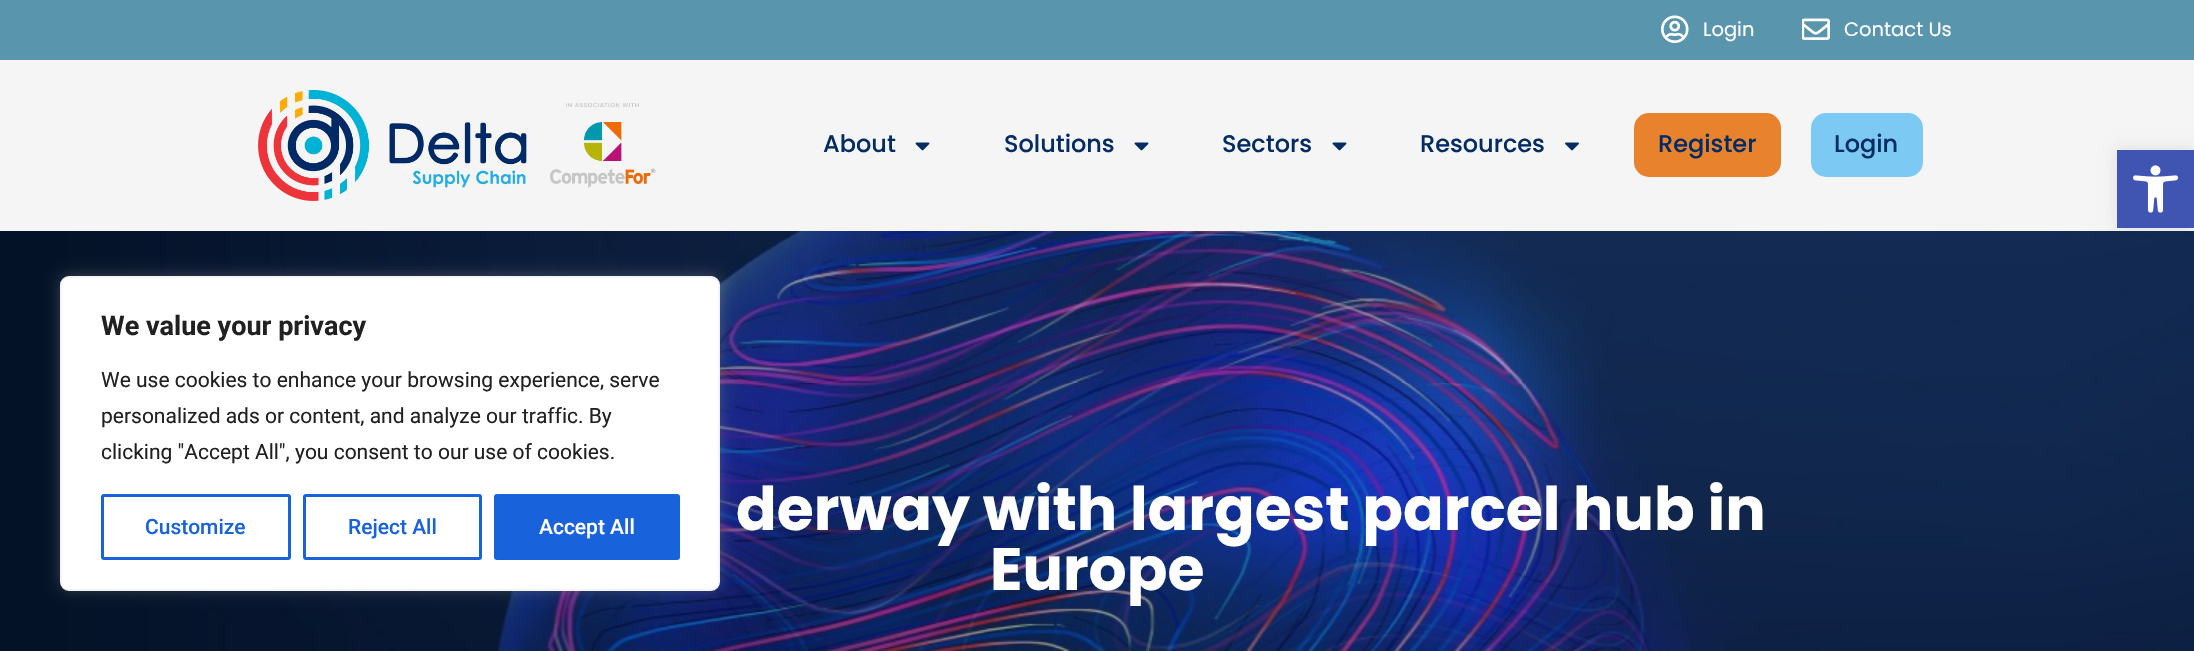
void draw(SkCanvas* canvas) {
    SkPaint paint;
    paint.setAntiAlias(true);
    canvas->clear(0xFF5995AC);
    canvas->drawImageRect(SkImages::DeferredFromEncodedData(SkData::MakeFromFileName("img1.png")), SkRect::MakeXYWH(1661, 15, 28, 29), SkSamplingOptions());
    SkFont font1(fontMgr->matchFamilyStyle("Poppins", SkFontStyle::Normal()), 19.5f);
    font1.setSubpixel(true);
    paint.setColor(0xFFFFFFFF);
    canvas->drawString("Login", 1703, 36, font1, paint);
    canvas->drawImageRect(SkImages::DeferredFromEncodedData(SkData::MakeFromFileName("img2.png")), SkRect::MakeXYWH(1802, 18, 28, 22), SkSamplingOptions());
    canvas->drawString("Contact Us", 1844, 36, font1, paint);
    paint.setColor(0xFFF5F5F5);
    canvas->drawRect(SkRect::MakeXYWH(0, 60, 2194, 171), paint);
    canvas->drawImageRect(SkImages::DeferredFromEncodedData(SkData::MakeFromFileName("img3.png")), SkRect::MakeXYWH(258, 90, 398, 111), SkSamplingOptions());
    SkFont font2(fontMgr->matchFamilyStyle("Poppins", SkFontStyle(500, SkFontStyle::kNormal_Width, SkFontStyle::kUpright_Slant)), 24);
    font2.setSubpixel(true);
    paint.setColor(0xFF042C64);
    canvas->drawString("About", 823, 152, font2, paint);
    canvas->drawImageRect(SkImages::DeferredFromEncodedData(SkData::MakeFromFileName("img4.png")), SkRect::MakeXYWH(915, 142, 15, 9), SkSamplingOptions());
    canvas->drawString("Solutions", 1004, 152, font2, paint);
    canvas->drawImageRect(SkImages::DeferredFromEncodedData(SkData::MakeFromFileName("img4.png")), SkRect::MakeXYWH(1134, 142, 15, 9), SkSamplingOptions());
    canvas->drawString("Sectors", 1222, 152, font2, paint);
    canvas->drawImageRect(SkImages::DeferredFromEncodedData(SkData::MakeFromFileName("img4.png")), SkRect::MakeXYWH(1332, 142, 15, 9), SkSamplingOptions());
    canvas->drawString("Resources", 1420, 152, font2, paint);
    canvas->drawImageRect(SkImages::DeferredFromEncodedData(SkData::MakeFromFileName("img5.png")), SkRect::MakeXYWH(1565, 142, 14, 9), SkSamplingOptions());
    paint.setColor(0xFFE8822C);
    canvas->drawRoundRect(SkRect::MakeXYWH(1634, 113, 147, 64), 15, 15, paint);
    paint.setColor(0xFF042C64);
    canvas->drawString("Register", 1658, 152, font2, paint);
    paint.setColor(0xFF7CCAF3);
    canvas->drawRoundRect(SkRect::MakeXYWH(1811, 113, 112, 64), 15, 15, paint);
    paint.setColor(0xFF042C64);
    canvas->drawString("Login", 1834, 152, font2, paint);
    canvas->drawImageRect(SkImages::DeferredFromEncodedData(SkData::MakeFromFileName("img7.png")), SkRect::MakeXYWH(0, 231, 2194, 420), SkSamplingOptions());
    paint.setColor(0x1A000000);
    paint.setMaskFilter(SkMaskFilter::MakeBlur(kNormal_SkBlurStyle, 7.5f));
    canvas->drawRect(SkRect::MakeXYWH(2117, 150, 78, 78), paint);
    paint.setMaskFilter(nullptr);
    paint.setColor(0xFF4054B2);
    canvas->drawRect(SkRect::MakeXYWH(2117, 150, 77, 78), paint);
    canvas->drawImageRect(SkImages::DeferredFromEncodedData(SkData::MakeFromFileName("img6.png")), SkRect::MakeXYWH(2133, 165, 46, 48), SkSamplingOptions());
    paint.setColor(0x4DACABAB);
    paint.setMaskFilter(SkMaskFilter::MakeBlur(kNormal_SkBlurStyle, 7.5f));
    canvas->drawRoundRect(SkRect::MakeXYWH(60, 275, 660, 315), 9, 9, paint);
    paint.setMaskFilter(nullptr);
    paint.setColor(0xFFFFFFFF);
    canvas->drawRoundRect(SkRect::MakeXYWH(61, 277, 658, 313), 8, 8, paint);
    paint.setStyle(SkPaint::kStroke_Style);
    paint.setStrokeWidth(2);
    paint.setColor(0xFFF4F4F4);
    canvas->drawRoundRect(SkRect::MakeXYWH(61, 277, 658, 313), 8, 8, paint);
    SkFont font3(fontMgr->matchFamilyStyle("Roboto", SkFontStyle::Bold()), 27);
    font3.setSubpixel(true);
    paint.setStyle(SkPaint::kFill_Style);
    paint.setColor(0xFF212121);
    canvas->drawString("We value your privacy", 101, 335, font3, paint);
    SkFont font4(fontMgr->matchFamilyStyle("Roboto", SkFontStyle::Normal()), 21);
    font4.setSubpixel(true);
    canvas->drawString("We use cookies to enhance your browsing experience, serve", 101, 387, font4, paint);
    canvas->drawString("personalized ads or content, and analyze our traffic. By", 101, 423, font4, paint);
    canvas->drawString("clicking \"Accept All\", you consent to our use of cookies.", 101, 459, font4, paint);
    paint.setStyle(SkPaint::kStroke_Style);
    paint.setStrokeWidth(3);
    paint.setColor(0xFF1863DC);
    canvas->drawRoundRect(SkRect::MakeXYWH(102.5f, 495.5f, 187, 63), 1.5f, 1.5f, paint);
    SkFont font5(fontMgr->matchFamilyStyle("Roboto", SkFontStyle(500, SkFontStyle::kNormal_Width, SkFontStyle::kUpright_Slant)), 21);
    font5.setSubpixel(true);
    paint.setStyle(SkPaint::kFill_Style);
    canvas->drawString("Customize", 145, 534, font5, paint);
    paint.setStyle(SkPaint::kStroke_Style);
    canvas->drawRoundRect(SkRect::MakeXYWH(304.5f, 495.5f, 176, 63), 1.5f, 1.5f, paint);
    paint.setStyle(SkPaint::kFill_Style);
    canvas->drawString("Reject All", 348, 534, font5, paint);
    canvas->drawRoundRect(SkRect::MakeXYWH(495.5f, 495.5f, 183, 63), 1.5f, 1.5f, paint);
    paint.setStyle(SkPaint::kStroke_Style);
    canvas->drawRoundRect(SkRect::MakeXYWH(495.5f, 495.5f, 183, 63), 1.5f, 1.5f, paint);
    paint.setStyle(SkPaint::kFill_Style);
    paint.setColor(0xFFFFFFFF);
    canvas->drawString("Accept All", 539, 534, font5, paint);
    SkFont font6(fontMgr->matchFamilyStyle("Poppins", SkFontStyle::Bold()), 60);
    font6.setSubpixel(true);
    canvas->drawString("derway with largest parcel hub in", 736, 530, font6, paint);
    canvas->drawString("Europe", 990, 590, font6, paint);
}
